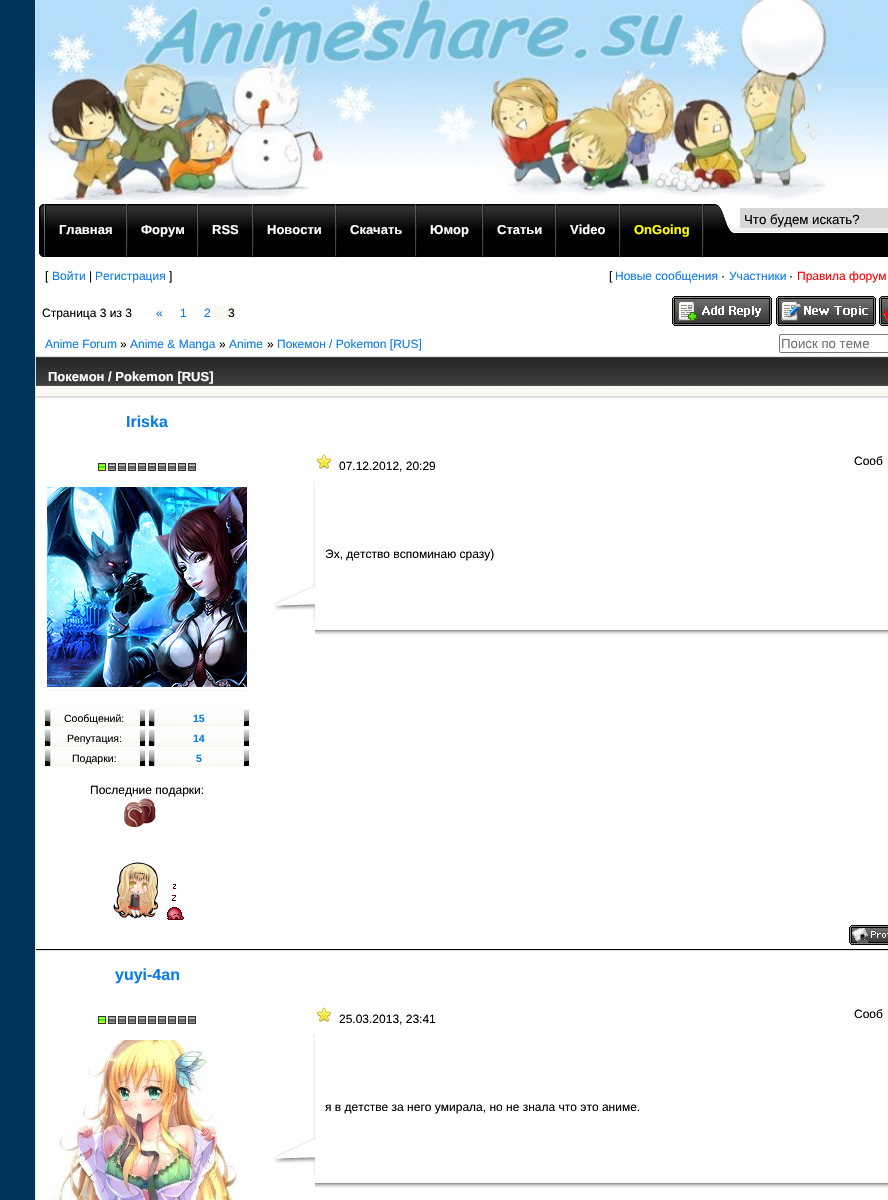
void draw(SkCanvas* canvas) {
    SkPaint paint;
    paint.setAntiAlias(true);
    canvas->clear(0xFF003559);
    canvas->drawImageRect(SkImages::DeferredFromEncodedData(SkData::MakeFromFileName("img1.png")), SkRect::MakeXYWH(35, 0, 853, 200), SkSamplingOptions());
    paint.setColor(0xFFFFFFFF);
    canvas->drawRect(SkRect::MakeXYWH(35, 261, 853, 95), paint);
    canvas->drawImageRect(SkImages::DeferredFromEncodedData(SkData::MakeFromFileName("img2.png")), SkRect::MakeXYWH(35, 200, 853, 61), SkSamplingOptions());
    canvas->drawImageRect(SkImages::DeferredFromEncodedData(SkData::MakeFromFileName("img3.png")), SkRect::MakeXYWH(35, 204, 11, 53), SkSamplingOptions());
    canvas->drawImageRect(SkImages::DeferredFromEncodedData(SkData::MakeFromFileName("img4.png")), SkRect::MakeXYWH(714, 204, 174, 30), SkSamplingOptions());
    paint.setColor(0xFFD5D7D8);
    canvas->drawRect(SkRect::MakeXYWH(740, 208, 148, 20), paint);
    SkFont font1(fontMgr->matchFamilyStyle("Liberation Sans", SkFontStyle::Normal()), 13.25f);
    font1.setSubpixel(true);
    paint.setColor(0xFF000000);
    canvas->drawString("Что будем искать?", 744, 224, font1, paint);
    canvas->drawImageRect(SkImages::DeferredFromEncodedData(SkData::MakeFromFileName("img5.png")), SkRect::MakeXYWH(126, 203, 2, 55), SkSamplingOptions());
    SkFont font2(fontMgr->matchFamilyStyle("Liberation Sans", SkFontStyle::Bold()), 13);
    font2.setSubpixel(true);
    paint.setColor(0xFFFFFFFF);
    canvas->drawString("Главная", 59, 234, font2, paint);
    canvas->drawImageRect(SkImages::DeferredFromEncodedData(SkData::MakeFromFileName("img5.png")), SkRect::MakeXYWH(197, 203, 2, 55), SkSamplingOptions());
    canvas->drawString("Форум", 141, 234, font2, paint);
    canvas->drawImageRect(SkImages::DeferredFromEncodedData(SkData::MakeFromFileName("img5.png")), SkRect::MakeXYWH(252, 203, 2, 55), SkSamplingOptions());
    canvas->drawString("RSS", 212, 234, font2, paint);
    canvas->drawImageRect(SkImages::DeferredFromEncodedData(SkData::MakeFromFileName("img5.png")), SkRect::MakeXYWH(335, 203, 2, 55), SkSamplingOptions());
    canvas->drawString("Новости", 267, 234, font2, paint);
    canvas->drawImageRect(SkImages::DeferredFromEncodedData(SkData::MakeFromFileName("img5.png")), SkRect::MakeXYWH(415, 203, 2, 55), SkSamplingOptions());
    canvas->drawString("Скачать", 350, 234, font2, paint);
    canvas->drawImageRect(SkImages::DeferredFromEncodedData(SkData::MakeFromFileName("img5.png")), SkRect::MakeXYWH(482, 203, 2, 55), SkSamplingOptions());
    canvas->drawString("Юмор", 430, 234, font2, paint);
    canvas->drawImageRect(SkImages::DeferredFromEncodedData(SkData::MakeFromFileName("img5.png")), SkRect::MakeXYWH(555, 203, 2, 55), SkSamplingOptions());
    canvas->drawString("Статьи", 497, 234, font2, paint);
    canvas->drawImageRect(SkImages::DeferredFromEncodedData(SkData::MakeFromFileName("img5.png")), SkRect::MakeXYWH(619, 203, 2, 55), SkSamplingOptions());
    canvas->drawString("Video", 570, 234, font2, paint);
    canvas->drawImageRect(SkImages::DeferredFromEncodedData(SkData::MakeFromFileName("img5.png")), SkRect::MakeXYWH(702, 203, 2, 55), SkSamplingOptions());
    paint.setColor(0xFFFFFF00);
    canvas->drawString("OnGoing", 634, 234, font2, paint);
    SkFont font3(fontMgr->matchFamilyStyle("Liberation Sans", SkFontStyle::Normal()), 12);
    font3.setSubpixel(true);
    paint.setColor(0xFF000000);
    canvas->drawString("[", 45, 280, font3, paint);
    paint.setColor(0xFF097BEC);
    canvas->drawString("Войти", 52, 280, font3, paint);
    paint.setColor(0xFF000000);
    canvas->drawString("|", 89, 280, font3, paint);
    paint.setColor(0xFF097BEC);
    canvas->drawString("Регистрация", 95, 280, font3, paint);
    paint.setColor(0xFF000000);
    canvas->drawString("]", 169, 280, font3, paint);
    canvas->drawString("[", 609, 280, font3, paint);
    paint.setColor(0xFF097BEC);
    canvas->drawString("Новые сообщения", 615, 280, font3, paint);
    paint.setColor(0xFF000000);
    canvas->drawString("·", 721, 280, font3, paint);
    paint.setColor(0xFF097BEC);
    canvas->drawString("Участники", 729, 280, font3, paint);
    paint.setColor(0xFF000000);
    canvas->drawString("·", 789, 280, font3, paint);
    paint.setColor(0xFFFF0000);
    canvas->drawString("Правила форум", 797, 280, font3, paint);
    paint.setColor(0xFF000000);
    canvas->drawString("Страница 3 из 3", 42, 317, font3, paint);
    paint.setColor(0xFF097BEC);
    canvas->drawString("«", 156, 317, font3, paint);
    canvas->drawString("1", 180, 317, font3, paint);
    canvas->drawString("2", 204, 317, font3, paint);
    paint.setColor(0xFFF9F8F3);
    canvas->drawRect(SkRect::MakeXYWH(214, 306, 21, 14), paint);
    paint.setColor(0xFF000000);
    canvas->drawString("3", 228, 317, font3, paint);
    canvas->drawImageRect(SkImages::DeferredFromEncodedData(SkData::MakeFromFileName("img6.png")), SkRect::MakeXYWH(672, 296, 100, 30), SkSamplingOptions());
    canvas->drawImageRect(SkImages::DeferredFromEncodedData(SkData::MakeFromFileName("img7.png")), SkRect::MakeXYWH(776, 296, 100, 30), SkSamplingOptions());
    canvas->drawImageRect(SkImages::DeferredFromEncodedData(SkData::MakeFromFileName("img8.png")), SkRect::MakeXYWH(879, 296, 9, 30), SkSamplingOptions());
    paint.setColor(0xFF097BEC);
    canvas->drawString("Anime Forum", 45, 348, font3, paint);
    paint.setColor(0xFF000000);
    canvas->drawString("»", 120, 348, font3, paint);
    paint.setColor(0xFF097BEC);
    canvas->drawString("Anime & Manga", 130, 348, font3, paint);
    paint.setColor(0xFF000000);
    canvas->drawString("»", 219, 348, font3, paint);
    paint.setColor(0xFF097BEC);
    canvas->drawString("Anime", 229, 348, font3, paint);
    paint.setColor(0xFF000000);
    canvas->drawString("»", 267, 348, font3, paint);
    paint.setColor(0xFF097BEC);
    canvas->drawString("Покемон / Pokemon [RUS]", 277, 348, font3, paint);
    paint.setStyle(SkPaint::kStroke_Style);
    paint.setStrokeWidth(1);
    paint.setColor(0xFF767676);
    canvas->drawRoundRect(SkRect::MakeXYWH(779.5f, 334.5f, 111, 18), 1.5f, 1.5f, paint);
    paint.setStyle(SkPaint::kFill_Style);
    paint.setColor(0xFF757575);
    canvas->drawString("Поиск по теме", 781, 348, font1, paint);
    paint.setColor(0xFFE0E0E0);
    canvas->drawRect(SkRect::MakeXYWH(35, 356, 853, 844), paint);
    paint.setColor(0xFFF9F8F3);
    canvas->drawRect(SkRect::MakeXYWH(36, 386, 852, 10), paint);
    canvas->drawImageRect(SkImages::DeferredFromEncodedData(SkData::MakeFromFileName("img9.png")), SkRect::MakeXYWH(36, 357, 852, 29), SkSamplingOptions());
    paint.setColor(0xFFFFFFFF);
    canvas->drawString("Покемон / Pokemon [RUS]", 48, 381, font2, paint);
    canvas->drawRect(SkRect::MakeXYWH(36, 398, 852, 526), paint);
    SkFont font4(fontMgr->matchFamilyStyle("Liberation Sans", SkFontStyle::Bold()), 16);
    font4.setSubpixel(true);
    paint.setColor(0xFF097BEC);
    canvas->drawString("Iriskа", 126, 427, font4, paint);
    canvas->drawImageRect(SkImages::DeferredFromEncodedData(SkData::MakeFromFileName("img10.png")), SkRect::MakeXYWH(98, 463, 98, 8), SkSamplingOptions());
    canvas->drawImageRect(SkImages::DeferredFromEncodedData(SkData::MakeFromFileName("img11.png")), SkRect::MakeXYWH(47, 487, 200, 200), SkSamplingOptions());
    paint.setColor(0xFFF9F8F3);
    canvas->drawRect(SkRect::MakeXYWH(49, 689, 196, 2), paint);
    canvas->drawRect(SkRect::MakeXYWH(44, 709, 102, 18), paint);
    canvas->drawImageRect(SkImages::DeferredFromEncodedData(SkData::MakeFromFileName("img12.png")), SkRect::MakeXYWH(45, 710, 100, 16), SkSamplingOptions());
    SkFont font5(fontMgr->matchFamilyStyle("Liberation Sans", SkFontStyle::Normal()), 10.5f);
    font5.setSubpixel(true);
    paint.setColor(0xFF000000);
    canvas->drawString("Сообщений:", 64, 722, font5, paint);
    paint.setColor(0xFFF9F8F3);
    canvas->drawRect(SkRect::MakeXYWH(148, 709, 102, 18), paint);
    canvas->drawImageRect(SkImages::DeferredFromEncodedData(SkData::MakeFromFileName("img12.png")), SkRect::MakeXYWH(149, 710, 100, 16), SkSamplingOptions());
    SkFont font6(fontMgr->matchFamilyStyle("Liberation Sans", SkFontStyle::Bold()), 10.5f);
    font6.setSubpixel(true);
    paint.setColor(0xFF097BEC);
    canvas->drawString("15", 193, 722, font6, paint);
    paint.setColor(0xFFF9F8F3);
    canvas->drawRect(SkRect::MakeXYWH(44, 729, 102, 18), paint);
    canvas->drawImageRect(SkImages::DeferredFromEncodedData(SkData::MakeFromFileName("img12.png")), SkRect::MakeXYWH(45, 730, 100, 16), SkSamplingOptions());
    paint.setColor(0xFF000000);
    canvas->drawString("Репутация:", 67, 742, font5, paint);
    paint.setColor(0xFFF9F8F3);
    canvas->drawRect(SkRect::MakeXYWH(148, 729, 102, 18), paint);
    canvas->drawImageRect(SkImages::DeferredFromEncodedData(SkData::MakeFromFileName("img12.png")), SkRect::MakeXYWH(149, 730, 100, 16), SkSamplingOptions());
    paint.setColor(0xFF097BEC);
    canvas->drawString("14", 193, 742, font6, paint);
    paint.setColor(0xFFF9F8F3);
    canvas->drawRect(SkRect::MakeXYWH(44, 749, 102, 18), paint);
    canvas->drawImageRect(SkImages::DeferredFromEncodedData(SkData::MakeFromFileName("img12.png")), SkRect::MakeXYWH(45, 750, 100, 16), SkSamplingOptions());
    paint.setColor(0xFF000000);
    canvas->drawString("Подарки:", 72, 762, font5, paint);
    paint.setColor(0xFFF9F8F3);
    canvas->drawRect(SkRect::MakeXYWH(148, 749, 102, 18), paint);
    canvas->drawImageRect(SkImages::DeferredFromEncodedData(SkData::MakeFromFileName("img12.png")), SkRect::MakeXYWH(149, 750, 100, 16), SkSamplingOptions());
    paint.setColor(0xFF097BEC);
    canvas->drawString("5", 196, 762, font6, paint);
    paint.setColor(0xFF000000);
    canvas->drawString("Последние подарки:", 90, 794, font3, paint);
    canvas->drawImageRect(SkImages::DeferredFromEncodedData(SkData::MakeFromFileName("img13.png")), SkRect::MakeXYWH(124, 798, 32, 29), SkSamplingOptions());
    canvas->drawImageRect(SkImages::DeferredFromEncodedData(SkData::MakeFromFileName("img14.png")), SkRect::MakeXYWH(113, 862, 46, 57), SkSamplingOptions());
    canvas->drawImageRect(SkImages::DeferredFromEncodedData(SkData::MakeFromFileName("img15.png")), SkRect::MakeXYWH(167, 884, 17, 36), SkSamplingOptions());
    canvas->drawImageRect(SkImages::DeferredFromEncodedData(SkData::MakeFromFileName("img16.png")), SkRect::MakeXYWH(316, 454, 16, 16), SkSamplingOptions());
    canvas->drawString("07.12.2012, 20:29", 339, 470, font3, paint);
    canvas->drawString("Сооб", 854, 465, font3, paint);
    canvas->drawImageRect(SkImages::DeferredFromEncodedData(SkData::MakeFromFileName("img17.png")), SkRect::MakeXYWH(313, 479, 2, 6), SkSamplingOptions());
    canvas->drawImageRect(SkImages::DeferredFromEncodedData(SkData::MakeFromFileName("img18.png")), SkRect::MakeXYWH(273, 487, 42, 132), SkSamplingOptions());
    canvas->drawString("Эх, детство вспоминаю сразу)", 325, 558, font3, paint);
    canvas->drawImageRect(SkImages::DeferredFromEncodedData(SkData::MakeFromFileName("img19.png")), SkRect::MakeXYWH(313, 619, 2, 2), SkSamplingOptions());
    canvas->drawImageRect(SkImages::DeferredFromEncodedData(SkData::MakeFromFileName("img20.png")), SkRect::MakeXYWH(315, 630, 573, 5), SkSamplingOptions());
    paint.setColor(0xFFFFFFFF);
    canvas->drawRect(SkRect::MakeXYWH(36, 924, 852, 25), paint);
    canvas->drawImageRect(SkImages::DeferredFromEncodedData(SkData::MakeFromFileName("img21.png")), SkRect::MakeXYWH(849, 925, 39, 20), SkSamplingOptions());
    paint.setColor(0xFF000000);
    canvas->drawRect(SkRect::MakeXYWH(36, 949, 852, 1), paint);
    paint.setColor(0xFFFFFFFF);
    canvas->drawRect(SkRect::MakeXYWH(36, 951, 852, 249), paint);
    paint.setColor(0xFF097BEC);
    canvas->drawString("yuyi-4an", 115, 980, font4, paint);
    canvas->drawImageRect(SkImages::DeferredFromEncodedData(SkData::MakeFromFileName("img10.png")), SkRect::MakeXYWH(98, 1016, 98, 8), SkSamplingOptions());
    canvas->drawImageRect(SkImages::DeferredFromEncodedData(SkData::MakeFromFileName("img22.png")), SkRect::MakeXYWH(50, 1040, 189, 160), SkSamplingOptions());
    canvas->drawImageRect(SkImages::DeferredFromEncodedData(SkData::MakeFromFileName("img16.png")), SkRect::MakeXYWH(316, 1007, 16, 16), SkSamplingOptions());
    paint.setColor(0xFF000000);
    canvas->drawString("25.03.2013, 23:41", 339, 1023, font3, paint);
    canvas->drawString("Сооб", 854, 1018, font3, paint);
    canvas->drawImageRect(SkImages::DeferredFromEncodedData(SkData::MakeFromFileName("img17.png")), SkRect::MakeXYWH(313, 1032, 2, 6), SkSamplingOptions());
    canvas->drawImageRect(SkImages::DeferredFromEncodedData(SkData::MakeFromFileName("img18.png")), SkRect::MakeXYWH(273, 1040, 42, 132), SkSamplingOptions());
    canvas->drawString("я в детстве за него умирала, но не знала что это аниме.", 325, 1111, font3, paint);
    canvas->drawImageRect(SkImages::DeferredFromEncodedData(SkData::MakeFromFileName("img19.png")), SkRect::MakeXYWH(313, 1172, 2, 2), SkSamplingOptions());
    canvas->drawImageRect(SkImages::DeferredFromEncodedData(SkData::MakeFromFileName("img20.png")), SkRect::MakeXYWH(315, 1183, 573, 5), SkSamplingOptions());
}
